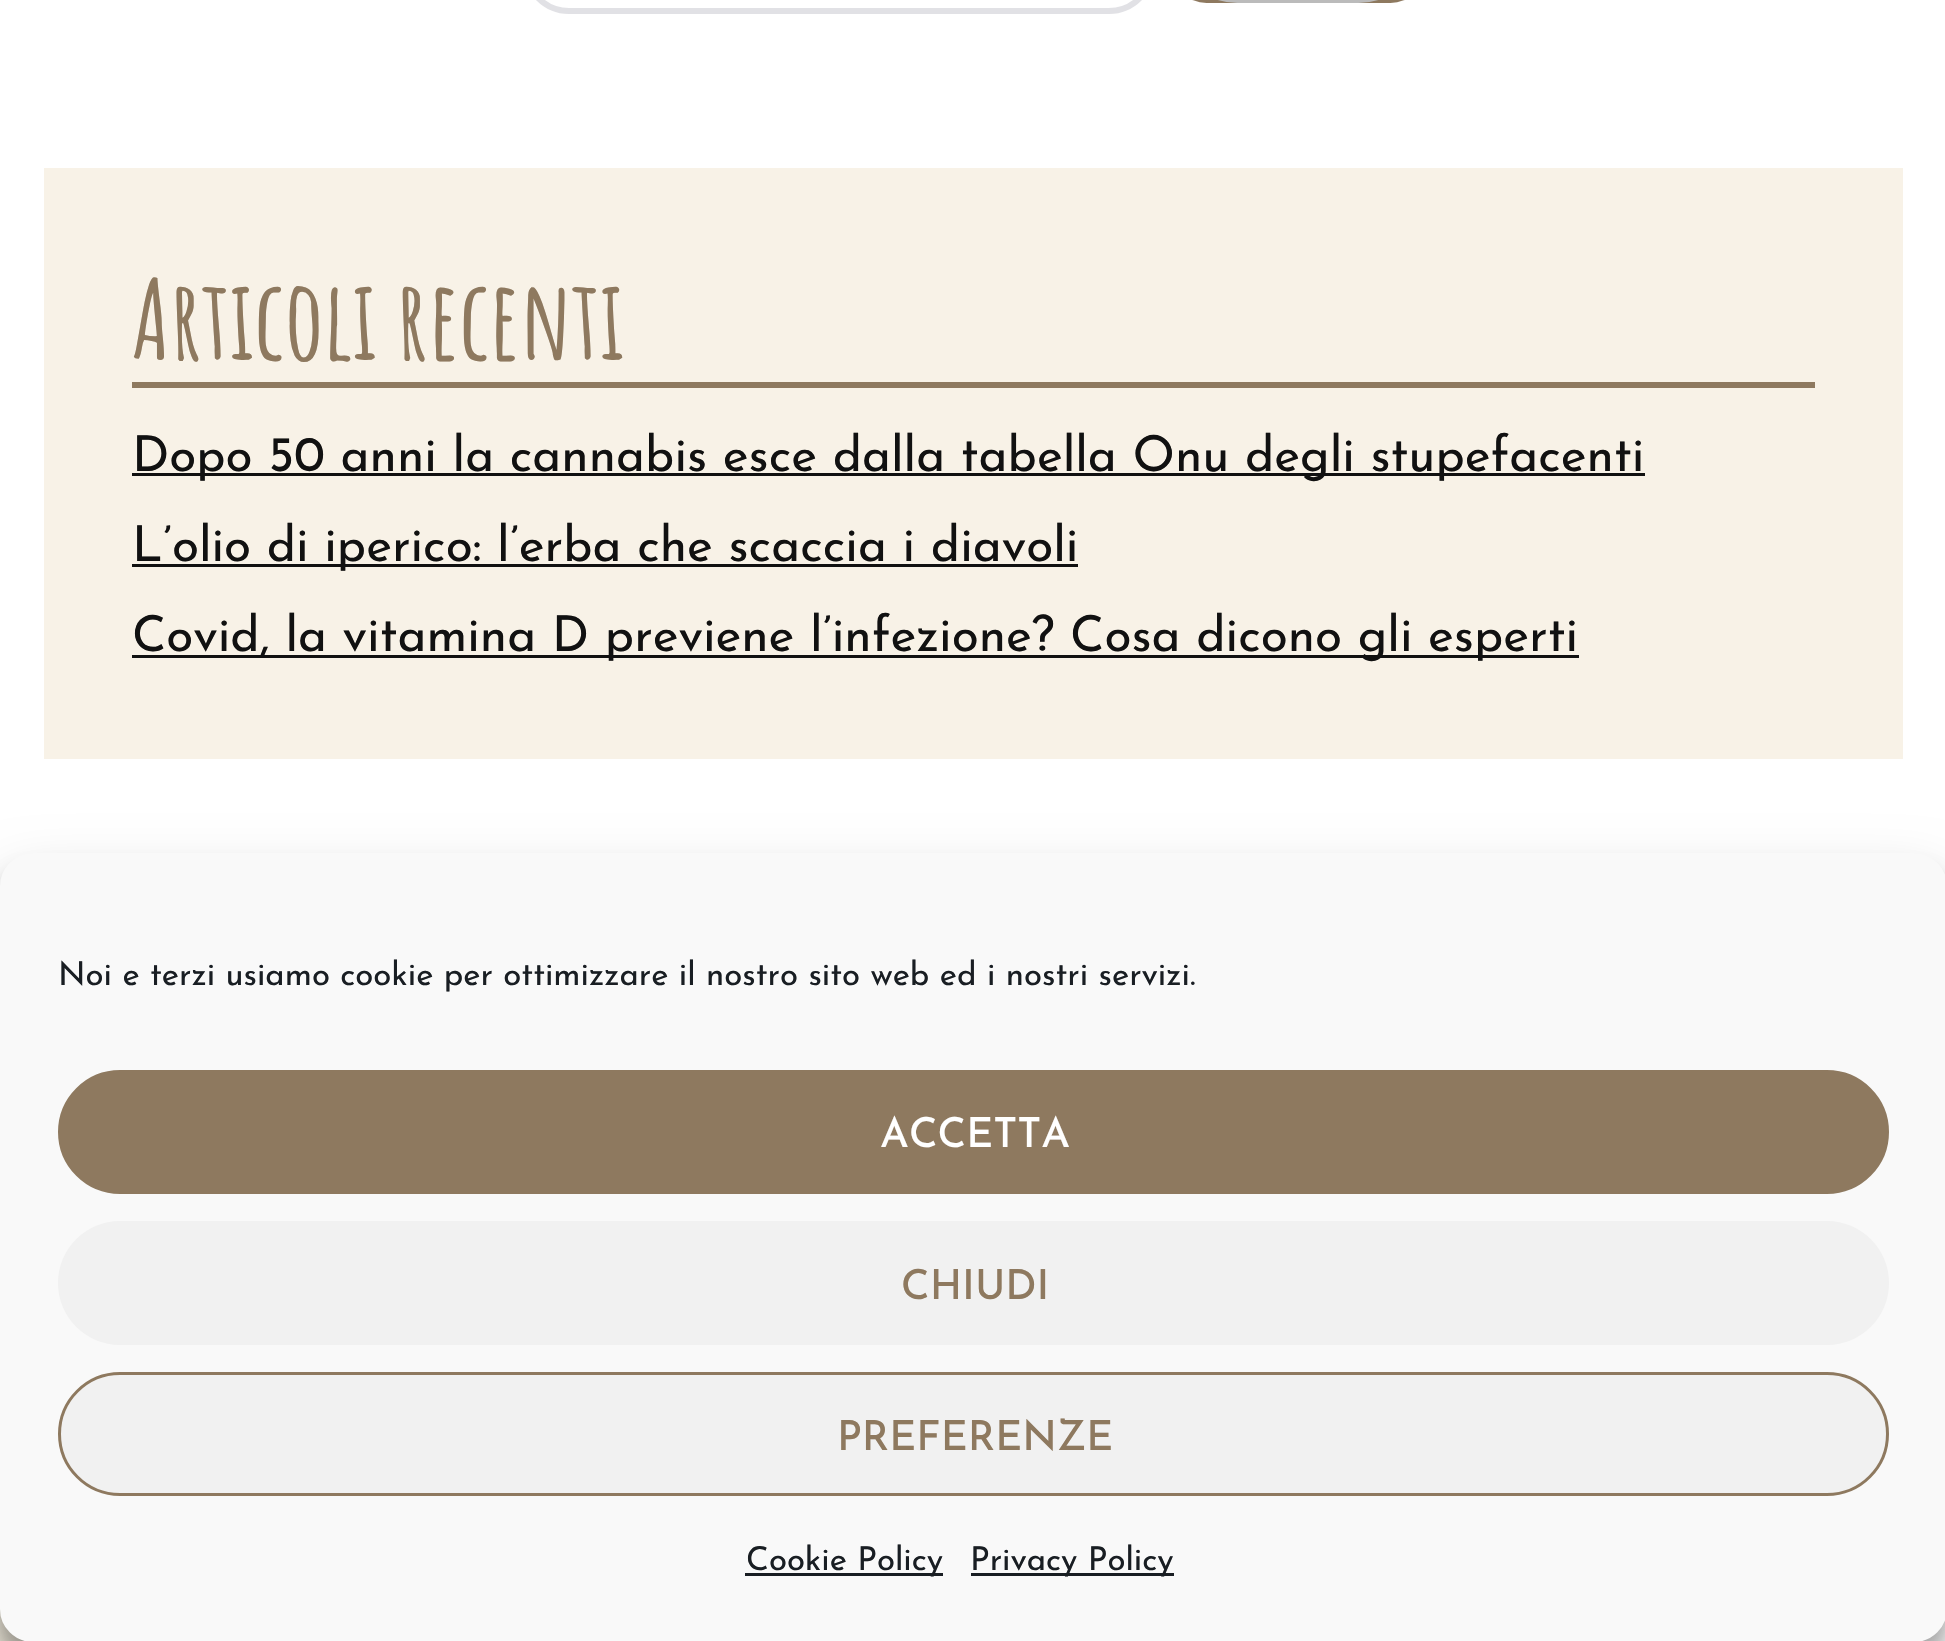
void draw(SkCanvas* canvas) {
    SkPaint paint;
    paint.setAntiAlias(true);
    auto spacedText = [&](const char* s, float x, float y, const SkFont& font, const SkPaint& ink, float letter, float word) {
        std::vector<SkGlyphID> glyphs(font.countText(s, strlen(s), SkTextEncoding::kUTF8));
        std::vector<float> xs(glyphs.size());
        font.textToGlyphs(s, strlen(s), SkTextEncoding::kUTF8, glyphs);
        font.getXPos(glyphs, xs, x);
        float extra = 0;
        for (size_t i = 0; i < glyphs.size(); i++) {
            xs[i] += extra;
            extra += letter + word * (glyphs[i] == font.unicharToGlyph(' '));
        }
        canvas->drawTextBlob(SkTextBlob::MakeFromPosHGlyphs(glyphs, xs, y, font), 0, 0, ink);
    };
    canvas->clear(0xFFFFFFFF);
    paint.setStyle(SkPaint::kStroke_Style);
    paint.setStrokeWidth(6);
    paint.setColor(0xFFE1E1E5);
    canvas->drawRoundRect(SkRect::MakeXYWH(526, -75, 626, 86), 68.5f, 68.5f, paint);
    paint.setStyle(SkPaint::kFill_Style);
    paint.setColor(0xFF8E795F);
    canvas->drawRoundRect(SkRect::MakeXYWH(1172, -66, 253, 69), 66, 66, paint);
    paint.setStyle(SkPaint::kStroke_Style);
    paint.setStrokeWidth(2.8f);
    paint.setColor(0xFFBBBBBB);
    canvas->drawPath(SkPathBuilder().moveTo(1404, -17.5f).cubicTo(1392, -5.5f, 1375.5f, 1.5f, 1358.5f, 1.5f).lineTo(1237.5f, 1.5f).cubicTo(1220.5f, 1.5f, 1204, -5.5f, 1192, -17.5f).detach(), paint);
    paint.setStyle(SkPaint::kFill_Style);
    paint.setColor(0xFFF8F2E7);
    canvas->drawRect(SkRect::MakeXYWH(44, 168, 1859, 591), paint);
    paint.setColor(0xFF8E795F);
    canvas->drawRect(SkRect::MakeXYWH(132, 382, 1683, 6), paint);
    SkFont font1(fontMgr->matchFamilyStyle("Amatic SC", SkFontStyle::Bold()), 110);
    font1.setSubpixel(true);
    spacedText("Articoli recenti", 132, 360, font1, paint, -0.5f, 0);
    paint.setColor(0xFF111111);
    canvas->drawRect(SkRect::MakeXYWH(132, 473, 1513, 3), paint);
    SkFont font2(fontMgr->matchFamilyStyle("Josefin Sans", SkFontStyle::Normal()), 49.5f);
    font2.setSubpixel(true);
    canvas->drawString("Dopo 50 anni la cannabis esce dalla tabella Onu degli stupefacenti", 132, 471, font2, paint);
    canvas->drawRect(SkRect::MakeXYWH(132, 564, 946, 3), paint);
    canvas->drawString("L’olio di iperico: l’erba che scaccia i diavoli", 132, 561, font2, paint);
    canvas->drawRect(SkRect::MakeXYWH(132, 655, 1447, 3), paint);
    canvas->drawString("Covid, la vitamina D previene l’infezione? Cosa dicono gli esperti", 132, 651, font2, paint);
    paint.setColor(0xFFEBE6D8);
    canvas->drawRect(SkRect::MakeXYWH(0, 1609, 25, 32), paint);
    paint.setColor(0x3B000000);
    paint.setMaskFilter(SkMaskFilter::MakeBlur(kNormal_SkBlurStyle, 8));
    canvas->drawRoundRect(SkRect::MakeXYWH(0, 869, 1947, 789), 33, 33, paint);
    paint.setMaskFilter(nullptr);
    paint.setColor(0x30000000);
    paint.setMaskFilter(SkMaskFilter::MakeBlur(kNormal_SkBlurStyle, 27.5f));
    canvas->drawRoundRect(SkRect::MakeXYWH(0, 880, 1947, 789), 33, 33, paint);
    paint.setMaskFilter(nullptr);
    paint.setColor(0xFFF9F9F9);
    canvas->drawRoundRect(SkRect::MakeXYWH(1.5f, 854.5f, 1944, 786), 31.5f, 31.5f, paint);
    paint.setStyle(SkPaint::kStroke_Style);
    paint.setStrokeWidth(3);
    canvas->drawRoundRect(SkRect::MakeXYWH(1.5f, 854.5f, 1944, 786), 31.5f, 31.5f, paint);
    SkFont font3(fontMgr->matchFamilyStyle("Josefin Sans", SkFontStyle::Normal()), 33);
    font3.setSubpixel(true);
    paint.setStyle(SkPaint::kFill_Style);
    paint.setColor(0xFF191E23);
    canvas->drawString("Noi e terzi usiamo cookie per ottimizzare il nostro sito web ed i nostri servizi.", 58, 985, font3, paint);
    paint.setColor(0xFF8E795F);
    canvas->drawRoundRect(SkRect::MakeXYWH(59.5f, 1071.5f, 1828, 121), 60.5f, 60.5f, paint);
    paint.setStyle(SkPaint::kStroke_Style);
    canvas->drawRoundRect(SkRect::MakeXYWH(59.5f, 1071.5f, 1828, 121), 60.5f, 60.5f, paint);
    SkFont font4(fontMgr->matchFamilyStyle("Josefin Sans", SkFontStyle(500, SkFontStyle::kNormal_Width, SkFontStyle::kUpright_Slant)), 41.25f);
    font4.setSubpixel(true);
    paint.setStyle(SkPaint::kFill_Style);
    paint.setColor(0xFFFFFFFF);
    canvas->drawString("ACCETTA", 880, 1147, font4, paint);
    paint.setColor(0xFFF1F1F1);
    canvas->drawRoundRect(SkRect::MakeXYWH(58, 1221, 1831, 124), 62, 62, paint);
    paint.setColor(0xFF8E795F);
    canvas->drawString("CHIUDI", 901, 1299, font4, paint);
    paint.setColor(0xFFF1F1F1);
    canvas->drawRoundRect(SkRect::MakeXYWH(59.5f, 1373.5f, 1828, 121), 60.5f, 60.5f, paint);
    paint.setStyle(SkPaint::kStroke_Style);
    paint.setColor(0xFF8E795F);
    canvas->drawRoundRect(SkRect::MakeXYWH(59.5f, 1373.5f, 1828, 121), 60.5f, 60.5f, paint);
    paint.setStyle(SkPaint::kFill_Style);
    canvas->drawString("PREFERENZE", 837, 1450, font4, paint);
    paint.setColor(0xFF191E23);
    canvas->drawRect(SkRect::MakeXYWH(745, 1573, 198, 3), paint);
    canvas->drawString("Cookie Policy", 746, 1570, font3, paint);
    canvas->drawRect(SkRect::MakeXYWH(971, 1573, 203, 3), paint);
    canvas->drawString("Privacy Policy", 970, 1570, font3, paint);
}
